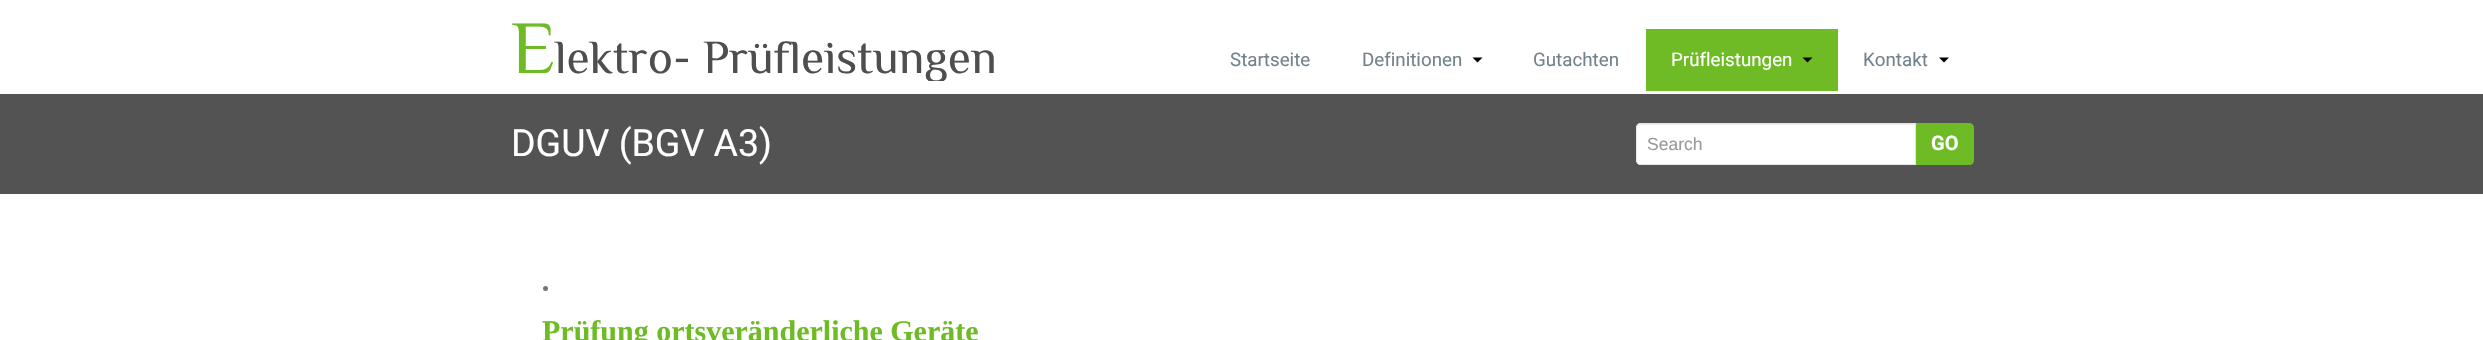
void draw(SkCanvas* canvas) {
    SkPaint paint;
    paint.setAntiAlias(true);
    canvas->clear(0xFFFFFFFF);
    SkFont font1(fontMgr->matchFamilyStyle("Philosopher", SkFontStyle::Normal()), 75);
    font1.setSubpixel(true);
    paint.setColor(0xFF6EBB25);
    canvas->drawString("E", 511, 73, font1, paint);
    canvas->save();
    canvas->clipRect(SkRect::MakeXYWH(511, 19, 510, 62));
    SkFont font2(fontMgr->matchFamilyStyle("Philosopher", SkFontStyle::Normal()), 47.5f);
    font2.setSubpixel(true);
    paint.setColor(0xFF4D4E4F);
    canvas->drawString("lektro- Prüfleistungen", 555, 73, font2, paint);
    canvas->restore();
    SkFont font3(fontMgr->matchFamilyStyle("Roboto", SkFontStyle::Normal()), 18.75f);
    font3.setSubpixel(true);
    paint.setColor(0xFF74838B);
    canvas->drawString("Startseite", 1230, 66, font3, paint);
    canvas->drawString("Definitionen", 1362, 66, font3, paint);
    paint.setColor(0xFF000000);
    canvas->drawPath(SkPathBuilder().moveTo(1472.5f, 57.5f).lineTo(1482.5f, 57.5f).lineTo(1477.5f, 62.5f).close().detach(), paint);
    paint.setColor(0xFF74838B);
    canvas->drawString("Gutachten", 1533, 66, font3, paint);
    paint.setColor(0xFF6EBB25);
    canvas->drawRect(SkRect::MakeXYWH(1646, 29, 192, 62), paint);
    paint.setColor(0xFFFFFFFF);
    canvas->drawString("Prüfleistungen", 1671, 66, font3, paint);
    paint.setColor(0xFF000000);
    canvas->drawPath(SkPathBuilder().moveTo(1802.5f, 57.5f).lineTo(1812.5f, 57.5f).lineTo(1807.5f, 62.5f).close().detach(), paint);
    paint.setColor(0xFF74838B);
    canvas->drawString("Kontakt", 1863, 66, font3, paint);
    paint.setColor(0xFF000000);
    canvas->drawPath(SkPathBuilder().moveTo(1939, 57.5f).lineTo(1949, 57.5f).lineTo(1944, 62.5f).close().detach(), paint);
    paint.setColor(0xFF535354);
    canvas->drawRect(SkRect::MakeXYWH(0, 94, 2483, 100), paint);
    SkFont font4(fontMgr->matchFamilyStyle("Roboto", SkFontStyle::Normal()), 37.5f);
    font4.setSubpixel(true);
    paint.setColor(0xFFFFFFFF);
    canvas->drawString("DGUV (BGV A3)", 511, 156, font4, paint);
    canvas->drawPath(SkPathBuilder().moveTo(1641, 123).lineTo(1916, 123).lineTo(1916, 165).lineTo(1641, 165).cubicTo(1638, 165, 1636, 163, 1636, 160).lineTo(1636, 128).cubicTo(1636, 125, 1638, 123, 1641, 123).close().detach(), paint);
    paint.setColor(0xFFECECEC);
    canvas->drawPath(SkPathBuilder().moveTo(1641, 125).lineTo(1915, 125).lineTo(1915, 124).lineTo(1642, 124).cubicTo(1639, 124, 1638, 126, 1638, 129).cubicTo(1638, 127, 1639, 125, 1641, 125).close().detach(), paint);
    paint.setStyle(SkPaint::kStroke_Style);
    paint.setStrokeWidth(1);
    paint.setColor(0xFFE4E8EA);
    canvas->drawPath(SkPathBuilder().moveTo(1641, 123.5f).lineTo(1915.5f, 123.5f).lineTo(1915.5f, 164.5f).lineTo(1641, 164.5f).cubicTo(1638.5f, 164.5f, 1636.5f, 162.5f, 1636.5f, 160).lineTo(1636.5f, 128).cubicTo(1636.5f, 125.5f, 1638.5f, 123.5f, 1641, 123.5f).close().detach(), paint);
    SkFont font5(fontMgr->matchFamilyStyle("Liberation Sans", SkFontStyle::Normal()), 17.5f);
    font5.setSubpixel(true);
    paint.setStyle(SkPaint::kFill_Style);
    paint.setColor(0xFF999999);
    canvas->drawString("Search", 1647, 150, font5, paint);
    paint.setColor(0xFF6EBB25);
    canvas->drawPath(SkPathBuilder().moveTo(1916, 123).lineTo(1969, 123).cubicTo(1972, 123, 1974, 125, 1974, 128).lineTo(1974, 160).cubicTo(1974, 163, 1972, 165, 1969, 165).lineTo(1916, 165).close().detach(), paint);
    SkFont font6(fontMgr->matchFamilyStyle("Roboto", SkFontStyle::Bold()), 20);
    font6.setSubpixel(true);
    paint.setColor(0xFFFFFFFF);
    canvas->drawString("GO", 1931, 150, font6, paint);
    paint.setColor(0xFF767676);
    canvas->drawCircle(545.5f, 288.5f, 2.5f, paint);
    SkFont font7(fontMgr->matchFamilyStyle("Liberation Serif", SkFontStyle::Bold()), 30);
    font7.setSubpixel(true);
    paint.setColor(0xFF6EBB25);
    canvas->drawString("Prüfung ortsveränderliche Geräte", 542, 341, font7, paint);
}
